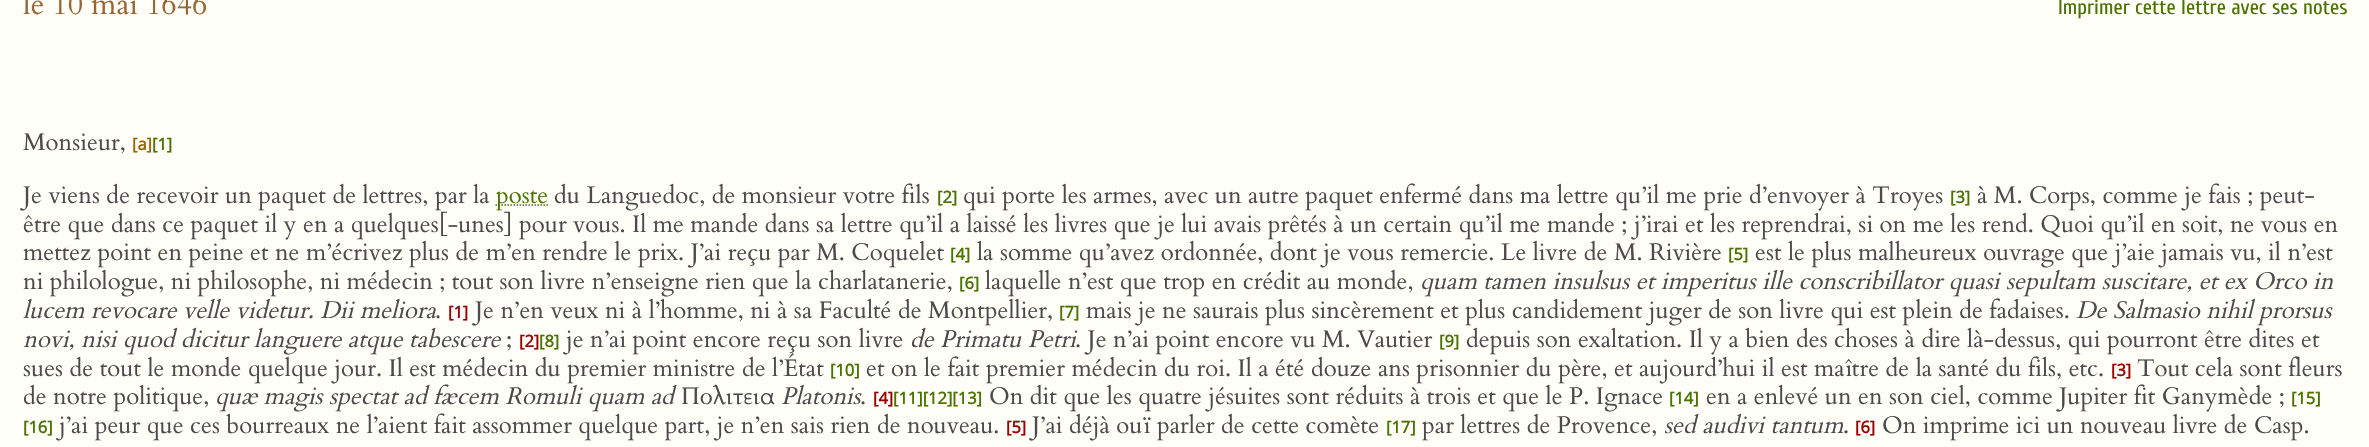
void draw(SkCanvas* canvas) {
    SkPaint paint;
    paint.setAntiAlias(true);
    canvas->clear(0xFFFFFEF9);
    SkFont font1(fontMgr->matchFamilyStyle("Cardo", SkFontStyle::Normal()), 30);
    font1.setSubpixel(true);
    paint.setColor(0xFF996633);
    canvas->drawString("le 10 mai 1646", 23, 14, font1, paint);
    SkFont font2(fontMgr->matchFamilyStyle("Cuprum", SkFontStyle::Normal()), 21);
    font2.setSubpixel(true);
    paint.setColor(0xFF4B7300);
    canvas->drawString("Imprimer cette lettre avec ses notes", 2058, 14, font2, paint);
    SkFont font3(fontMgr->matchFamilyStyle("Cardo", SkFontStyle::Normal()), 24);
    font3.setSubpixel(true);
    paint.setColor(0xFF4B4B4B);
    canvas->drawString("Monsieur,", 23, 150, font3, paint);
    SkFont font4(fontMgr->matchFamilyStyle("Open Sans", SkFontStyle::Bold()), 16.5f);
    font4.setSubpixel(true);
    paint.setColor(0xFF996600);
    canvas->drawString("[a]", 132, 150, font4, paint);
    paint.setColor(0xFF4B7300);
    canvas->drawString("[1]", 152, 150, font4, paint);
    paint.setColor(0xFF4B4B4B);
    canvas->drawString("Je viens de recevoir un paquet de lettres, par la", 23, 203, font3, paint);
    paint.setStyle(SkPaint::kStroke_Style);
    paint.setStrokeWidth(1.5f);
    paint.setColor(0xFF4B7300);
    paint.setPathEffect(SkDashPathEffect::Make({{1.5f, 1.5f}}, 0));
    canvas->drawPath(SkPathBuilder().moveTo(495.5f, 205).lineTo(548, 205).detach(), paint);
    paint.setPathEffect(nullptr);
    paint.setStyle(SkPaint::kFill_Style);
    canvas->drawString("poste", 496, 203, font3, paint);
    paint.setColor(0xFF4B4B4B);
    canvas->drawString("du Languedoc, de monsieur votre fils", 554, 203, font3, paint);
    paint.setColor(0xFF4B7300);
    canvas->drawString("[2]", 937, 203, font4, paint);
    paint.setColor(0xFF4B4B4B);
    canvas->drawString("qui porte les armes, avec un autre paquet enfermé dans ma lettre qu’il me prie d’envoyer à Troyes", 963, 203, font3, paint);
    paint.setColor(0xFF4B7300);
    canvas->drawString("[3]", 1950, 203, font4, paint);
    paint.setColor(0xFF4B4B4B);
    canvas->drawString("à M. Corps, comme je fais ; peut-", 1977, 203, font3, paint);
    canvas->drawString("être que dans ce paquet il y en a quelques[-unes] pour vous. Il me mande dans sa lettre qu’il a laissé les livres que je lui avais prêtés à un certain qu’il me mande ; j’irai et les reprendrai, si on me les rend. Quoi qu’il en soit, ne vous en", 23, 232, font3, paint);
    canvas->drawString("mettez point en peine et ne m’écrivez plus de m’en rendre le prix. J’ai reçu par M. Coquelet", 23, 260, font3, paint);
    paint.setColor(0xFF4B7300);
    canvas->drawString("[4]", 950, 260, font4, paint);
    paint.setColor(0xFF4B4B4B);
    canvas->drawString("la somme qu’avez ordonnée, dont je vous remercie. Le livre de M. Rivière", 977, 260, font3, paint);
    paint.setColor(0xFF4B7300);
    canvas->drawString("[5]", 1728, 260, font4, paint);
    paint.setColor(0xFF4B4B4B);
    canvas->drawString("est le plus malheureux ouvrage que j’aie jamais vu, il n’est", 1755, 260, font3, paint);
    canvas->drawString("ni philologue, ni philosophe, ni médecin ; tout son livre n’enseigne rien que la charlatanerie,", 23, 289, font3, paint);
    paint.setColor(0xFF4B7300);
    canvas->drawString("[6]", 959, 289, font4, paint);
    paint.setColor(0xFF4B4B4B);
    canvas->drawString("laquelle n’est que trop en crédit au monde,", 985, 289, font3, paint);
    SkFont font5(fontMgr->matchFamilyStyle("Cardo", SkFontStyle::Italic()), 24);
    font5.setSubpixel(true);
    canvas->drawString("quam tamen insulsus et imperitus ille conscribillator quasi sepultam suscitare, et ex Orco in", 1420, 289, font5, paint);
    canvas->drawString("lucem revocare velle videtur. Dii meliora", 23, 318, font5, paint);
    canvas->drawString(".", 435, 318, font3, paint);
    paint.setColor(0xFF990000);
    canvas->drawString("[1]", 448, 318, font4, paint);
    paint.setColor(0xFF4B4B4B);
    canvas->drawString("Je n’en veux ni à l’homme, ni à sa Faculté de Montpellier,", 475, 318, font3, paint);
    paint.setColor(0xFF4B7300);
    canvas->drawString("[7]", 1059, 318, font4, paint);
    paint.setColor(0xFF4B4B4B);
    canvas->drawString("mais je ne saurais plus sincèrement et plus candidement juger de son livre qui est plein de fadaises.", 1086, 318, font3, paint);
    canvas->drawString("De Salmasio nihil prorsus", 2076, 318, font5, paint);
    canvas->drawString("novi, nisi quod dicitur languere atque tabescere", 23, 347, font5, paint);
    canvas->drawString(";", 506, 347, font3, paint);
    paint.setColor(0xFF990000);
    canvas->drawString("[2]", 519, 347, font4, paint);
    paint.setColor(0xFF4B7300);
    canvas->drawString("[8]", 539, 347, font4, paint);
    paint.setColor(0xFF4B4B4B);
    canvas->drawString("je n’ai point encore reçu son livre", 566, 347, font3, paint);
    canvas->drawString("de Primatu Petri", 910, 347, font5, paint);
    canvas->drawString(". Je n’ai point encore vu M. Vautier", 1075, 347, font3, paint);
    paint.setColor(0xFF4B7300);
    canvas->drawString("[9]", 1439, 347, font4, paint);
    paint.setColor(0xFF4B4B4B);
    canvas->drawString("depuis son exaltation. Il y a bien des choses à dire là-dessus, qui pourront être dites et", 1466, 347, font3, paint);
    canvas->drawString("sues de tout le monde quelque jour. Il est médecin du premier ministre de l’État", 23, 376, font3, paint);
    paint.setColor(0xFF4B7300);
    canvas->drawString("[10]", 830, 376, font4, paint);
    paint.setColor(0xFF4B4B4B);
    canvas->drawString("et on le fait premier médecin du roi. Il a été douze ans prisonnier du père, et aujourd’hui il est maître de la santé du fils, etc.", 866, 376, font3, paint);
    paint.setColor(0xFF990000);
    canvas->drawString("[3]", 2111, 376, font4, paint);
    paint.setColor(0xFF4B4B4B);
    canvas->drawString("Tout cela sont fleurs", 2137, 376, font3, paint);
    canvas->drawString("de notre politique,", 23, 404, font3, paint);
    canvas->drawString("quæ magis spectat ad fæcem Romuli quam ad", 215, 404, font5, paint);
    canvas->drawString("Πολιτεια", 681, 404, font3, paint);
    canvas->drawString("Platonis", 781, 404, font5, paint);
    canvas->drawString(".", 860, 404, font3, paint);
    paint.setColor(0xFF990000);
    canvas->drawString("[4]", 873, 404, font4, paint);
    paint.setColor(0xFF4B7300);
    canvas->drawString("[11][12][13]", 893, 404, font4, paint);
    paint.setColor(0xFF4B4B4B);
    canvas->drawString("On dit que les quatre jésuites sont réduits à trois et que le P. Ignace", 989, 404, font3, paint);
    paint.setColor(0xFF4B7300);
    canvas->drawString("[14]", 1669, 404, font4, paint);
    paint.setColor(0xFF4B4B4B);
    canvas->drawString("en a enlevé un en son ciel, comme Jupiter fit Ganymède ;", 1706, 404, font3, paint);
    paint.setColor(0xFF4B7300);
    canvas->drawString("[15]", 2291, 404, font4, paint);
    canvas->drawString("[16]", 23, 433, font4, paint);
    paint.setColor(0xFF4B4B4B);
    canvas->drawString("j’ai peur que ces bourreaux ne l’aient fait assommer quelque part, je n’en sais rien de nouveau.", 59, 433, font3, paint);
    paint.setColor(0xFF990000);
    canvas->drawString("[5]", 1006, 433, font4, paint);
    paint.setColor(0xFF4B4B4B);
    canvas->drawString("J’ai déjà ouï parler de cette comète", 1032, 433, font3, paint);
    paint.setColor(0xFF4B7300);
    canvas->drawString("[17]", 1386, 433, font4, paint);
    paint.setColor(0xFF4B4B4B);
    canvas->drawString("par lettres de Provence,", 1422, 433, font3, paint);
    canvas->drawString("sed audivi tantum", 1664, 433, font5, paint);
    canvas->drawString(".", 1843, 433, font3, paint);
    paint.setColor(0xFF990000);
    canvas->drawString("[6]", 1855, 433, font4, paint);
    paint.setColor(0xFF4B4B4B);
    canvas->drawString("On imprime ici un nouveau livre de Casp.", 1882, 433, font3, paint);
}
